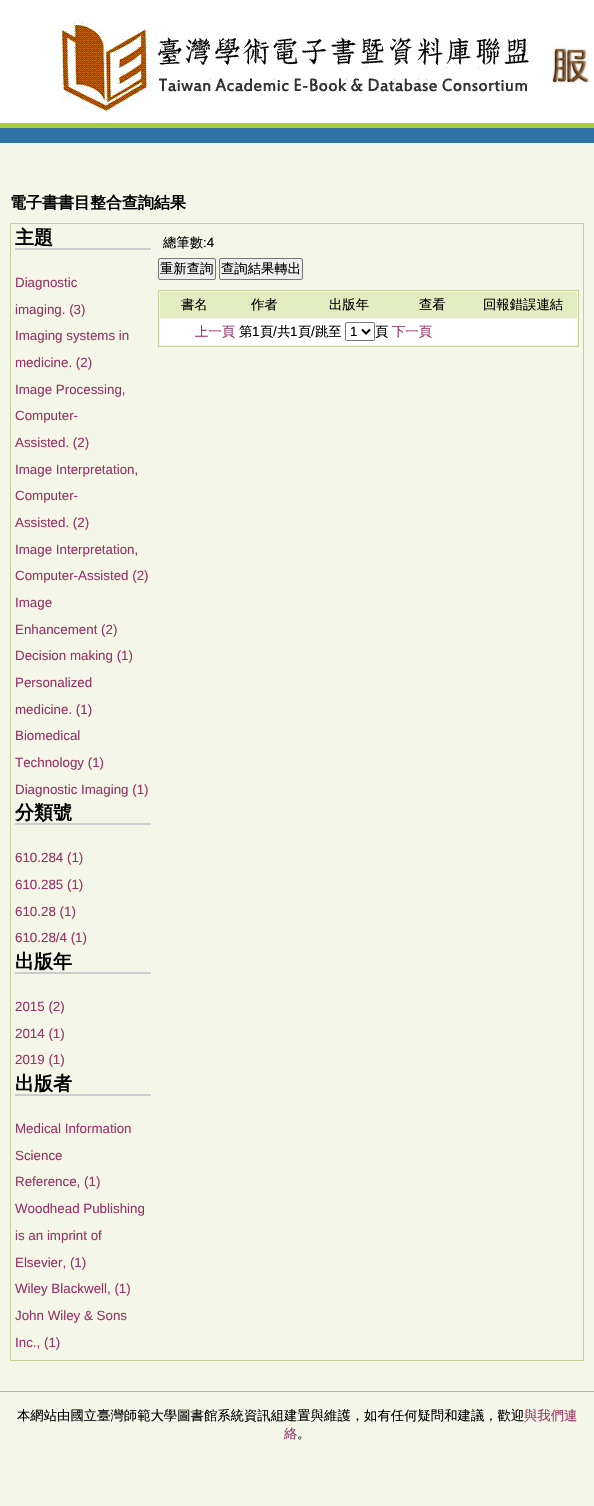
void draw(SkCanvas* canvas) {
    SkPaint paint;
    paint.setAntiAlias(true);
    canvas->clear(0xFFF4F7E7);
    paint.setColor(0xFFFFFFFF);
    canvas->drawRect(SkRect::MakeXYWH(0, 0, 594, 123), paint);
    paint.setColor(0xFFA6CD37);
    canvas->drawRect(SkRect::MakeXYWH(0, 123, 594, 5), paint);
    canvas->drawImageRect(SkImages::DeferredFromEncodedData(SkData::MakeFromFileName("img1.png")), SkRect::MakeXYWH(62, 20, 528, 93), SkSamplingOptions());
    paint.setColor(0xFF2F74A4);
    canvas->drawRect(SkRect::MakeXYWH(0, 128, 594, 15), paint);
    SkFont font1(fontMgr->matchFamilyStyle("WenQuanYi Zen Hei", SkFontStyle::Bold()), 16);
    font1.setSubpixel(true);
    paint.setColor(0xFF000000);
    canvas->drawString("電子書書目整合查詢結果", 10, 208, font1, paint);
    paint.setStyle(SkPaint::kStroke_Style);
    paint.setStrokeWidth(1);
    paint.setColor(0xFFC5CF9B);
    canvas->drawRect(SkRect::MakeXYWH(10.5f, 223.5f, 573, 1137), paint);
    paint.setStyle(SkPaint::kFill_Style);
    paint.setColor(0xFFCCCCCC);
    canvas->drawRect(SkRect::MakeXYWH(15, 248, 136, 2), paint);
    SkFont font2(fontMgr->matchFamilyStyle("WenQuanYi Zen Hei", SkFontStyle::Bold()), 19);
    font2.setSubpixel(true);
    paint.setColor(0xFF000000);
    canvas->drawString("主題", 15, 244, font2, paint);
    SkFont font3(fontMgr->matchFamilyStyle("Liberation Sans", SkFontStyle::Normal()), 13.35f);
    font3.setSubpixel(true);
    paint.setColor(0xFF993366);
    canvas->drawString("Diagnostic", 15, 287, font3, paint);
    canvas->drawString("imaging. (3)", 15, 314, font3, paint);
    canvas->drawString("Imaging systems in", 15, 340, font3, paint);
    canvas->drawString("medicine. (2)", 15, 367, font3, paint);
    canvas->drawString("Image Processing,", 15, 394, font3, paint);
    canvas->drawString("Computer-", 15, 420, font3, paint);
    canvas->drawString("Assisted. (2)", 15, 447, font3, paint);
    canvas->drawString("Image Interpretation,", 15, 474, font3, paint);
    canvas->drawString("Computer-", 15, 500, font3, paint);
    canvas->drawString("Assisted. (2)", 15, 527, font3, paint);
    canvas->drawString("Image Interpretation,", 15, 554, font3, paint);
    canvas->drawString("Computer-Assisted (2)", 15, 580, font3, paint);
    canvas->drawString("Image", 15, 607, font3, paint);
    canvas->drawString("Enhancement (2)", 15, 634, font3, paint);
    canvas->drawString("Decision making (1)", 15, 660, font3, paint);
    canvas->drawString("Personalized", 15, 687, font3, paint);
    canvas->drawString("medicine. (1)", 15, 714, font3, paint);
    canvas->drawString("Biomedical", 15, 740, font3, paint);
    canvas->drawString("Technology (1)", 15, 767, font3, paint);
    canvas->drawString("Diagnostic Imaging (1)", 15, 794, font3, paint);
    paint.setColor(0xFFCCCCCC);
    canvas->drawRect(SkRect::MakeXYWH(15, 823, 136, 2), paint);
    paint.setColor(0xFF000000);
    canvas->drawString("分類號", 15, 819, font2, paint);
    paint.setColor(0xFF993366);
    canvas->drawString("610.284 (1)", 15, 862, font3, paint);
    canvas->drawString("610.285 (1)", 15, 889, font3, paint);
    canvas->drawString("610.28 (1)", 15, 916, font3, paint);
    canvas->drawString("610.28/4 (1)", 15, 942, font3, paint);
    paint.setColor(0xFFCCCCCC);
    canvas->drawRect(SkRect::MakeXYWH(15, 972, 136, 2), paint);
    paint.setColor(0xFF000000);
    canvas->drawString("出版年", 15, 968, font2, paint);
    paint.setColor(0xFF993366);
    canvas->drawString("2015 (2)", 15, 1011, font3, paint);
    canvas->drawString("2014 (1)", 15, 1038, font3, paint);
    canvas->drawString("2019 (1)", 15, 1064, font3, paint);
    paint.setColor(0xFFCCCCCC);
    canvas->drawRect(SkRect::MakeXYWH(15, 1094, 136, 2), paint);
    paint.setColor(0xFF000000);
    canvas->drawString("出版者", 15, 1090, font2, paint);
    paint.setColor(0xFF993366);
    canvas->drawString("Medical Information", 15, 1133, font3, paint);
    canvas->drawString("Science", 15, 1160, font3, paint);
    canvas->drawString("Reference, (1)", 15, 1186, font3, paint);
    canvas->drawString("Woodhead Publishing", 15, 1213, font3, paint);
    canvas->drawString("is an imprint of", 15, 1240, font3, paint);
    canvas->drawString("Elsevier, (1)", 15, 1267, font3, paint);
    canvas->drawString("Wiley Blackwell, (1)", 15, 1293, font3, paint);
    canvas->drawString("John Wiley & Sons", 15, 1320, font3, paint);
    canvas->drawString("Inc., (1)", 15, 1347, font3, paint);
    SkFont font4(fontMgr->matchFamilyStyle("WenQuanYi Zen Hei", SkFontStyle(500, SkFontStyle::kNormal_Width, SkFontStyle::kUpright_Slant)), 13.35f);
    font4.setSubpixel(true);
    paint.setColor(0xFF000000);
    canvas->drawString("總筆數", 163, 247, font4, paint);
    canvas->drawString(":4", 203, 247, font3, paint);
    paint.setColor(0xFFEFEFEF);
    canvas->drawRoundRect(SkRect::MakeXYWH(158.5f, 258.5f, 57, 21), 1.5f, 1.5f, paint);
    paint.setStyle(SkPaint::kStroke_Style);
    paint.setColor(0xFF767676);
    canvas->drawRoundRect(SkRect::MakeXYWH(158.5f, 258.5f, 57, 21), 1.5f, 1.5f, paint);
    paint.setStyle(SkPaint::kFill_Style);
    paint.setColor(0xFF000000);
    canvas->drawString("重新查詢", 160, 273, font4, paint);
    paint.setColor(0xFFEFEFEF);
    canvas->drawRoundRect(SkRect::MakeXYWH(219.5f, 258.5f, 83, 21), 1.5f, 1.5f, paint);
    paint.setStyle(SkPaint::kStroke_Style);
    paint.setColor(0xFF767676);
    canvas->drawRoundRect(SkRect::MakeXYWH(219.5f, 258.5f, 83, 21), 1.5f, 1.5f, paint);
    paint.setStyle(SkPaint::kFill_Style);
    paint.setColor(0xFF000000);
    canvas->drawString("查詢結果轉出", 221, 273, font4, paint);
    paint.setStyle(SkPaint::kStroke_Style);
    paint.setColor(0xFFC5CF9B);
    canvas->drawRect(SkRect::MakeXYWH(158.5f, 290.5f, 420, 56), paint);
    paint.setStyle(SkPaint::kFill_Style);
    paint.setColor(0xFFE6E6EA);
    canvas->drawRect(SkRect::MakeXYWH(229, 292, 239, 26), paint);
    paint.setColor(0xFFE3ECC0);
    canvas->drawRect(SkRect::MakeXYWH(160, 292, 69, 26), paint);
    paint.setColor(0xFF000000);
    canvas->drawString("書名", 181, 309, font4, paint);
    paint.setColor(0xFFE3ECC0);
    canvas->drawRect(SkRect::MakeXYWH(230, 292, 69, 26), paint);
    paint.setColor(0xFF000000);
    canvas->drawString("作者", 251, 309, font4, paint);
    paint.setColor(0xFFE3ECC0);
    canvas->drawRect(SkRect::MakeXYWH(300, 292, 97, 26), paint);
    paint.setColor(0xFF000000);
    canvas->drawString("出版年", 329, 309, font4, paint);
    paint.setColor(0xFFE3ECC0);
    canvas->drawRect(SkRect::MakeXYWH(398, 292, 69, 26), paint);
    paint.setColor(0xFF000000);
    canvas->drawString("查看", 419, 309, font4, paint);
    paint.setColor(0xFFE3ECC0);
    canvas->drawRect(SkRect::MakeXYWH(468, 292, 109, 26), paint);
    paint.setColor(0xFF000000);
    canvas->drawString("回報錯誤連結", 483, 309, font4, paint);
    paint.setColor(0xFFFFFFFF);
    canvas->drawRect(SkRect::MakeXYWH(160, 319, 417, 26), paint);
    paint.setColor(0xFF993366);
    canvas->drawString("上一頁", 195, 336, font4, paint);
    paint.setColor(0xFF000000);
    canvas->drawString("第", 239, 336, font4, paint);
    canvas->drawString("1", 252, 336, font3, paint);
    canvas->drawString("頁 共", 260, 336, font4, paint);
    canvas->drawString("頁", 298, 336, font4, paint);
    canvas->drawString("/", 311, 336, font3, paint);
    canvas->drawString("跳至", 315, 336, font4, paint);
    canvas->drawString("頁", 375, 336, font4, paint);
    paint.setColor(0xFF993366);
    canvas->drawString("下一頁", 392, 336, font4, paint);
    paint.setColor(0xFF000000);
    canvas->drawString("/", 273, 336, font3, paint);
    canvas->drawString("1", 290, 336, font3, paint);
    paint.setStyle(SkPaint::kStroke_Style);
    paint.setColor(0xFF767676);
    canvas->drawRoundRect(SkRect::MakeXYWH(345.5f, 322.5f, 29, 18), 1.5f, 1.5f, paint);
    paint.setStrokeWidth(2);
    paint.setColor(0xFF000000);
    canvas->drawPath(SkPathBuilder().moveTo(362, 329.5f).lineTo(366, 333.5f).lineTo(370, 329.5f).detach(), paint);
    paint.setStyle(SkPaint::kFill_Style);
    canvas->drawString("1", 350, 336, font3, paint);
    paint.setColor(0xFFA6CD37);
    canvas->drawRect(SkRect::MakeXYWH(0, 1391, 594, 1), paint);
    paint.setColor(0xFF000000);
    canvas->drawString("本網站由國立臺灣師範大學圖書館系統資訊組建置與維護，如有任何疑問和建議，歡迎", 17, 1420, font4, paint);
    paint.setColor(0xFF993366);
    canvas->drawString("與我們連", 524, 1420, font4, paint);
    canvas->drawString("絡", 284, 1438, font4, paint);
    paint.setColor(0xFF000000);
    canvas->drawString("。", 297, 1438, font4, paint);
}
